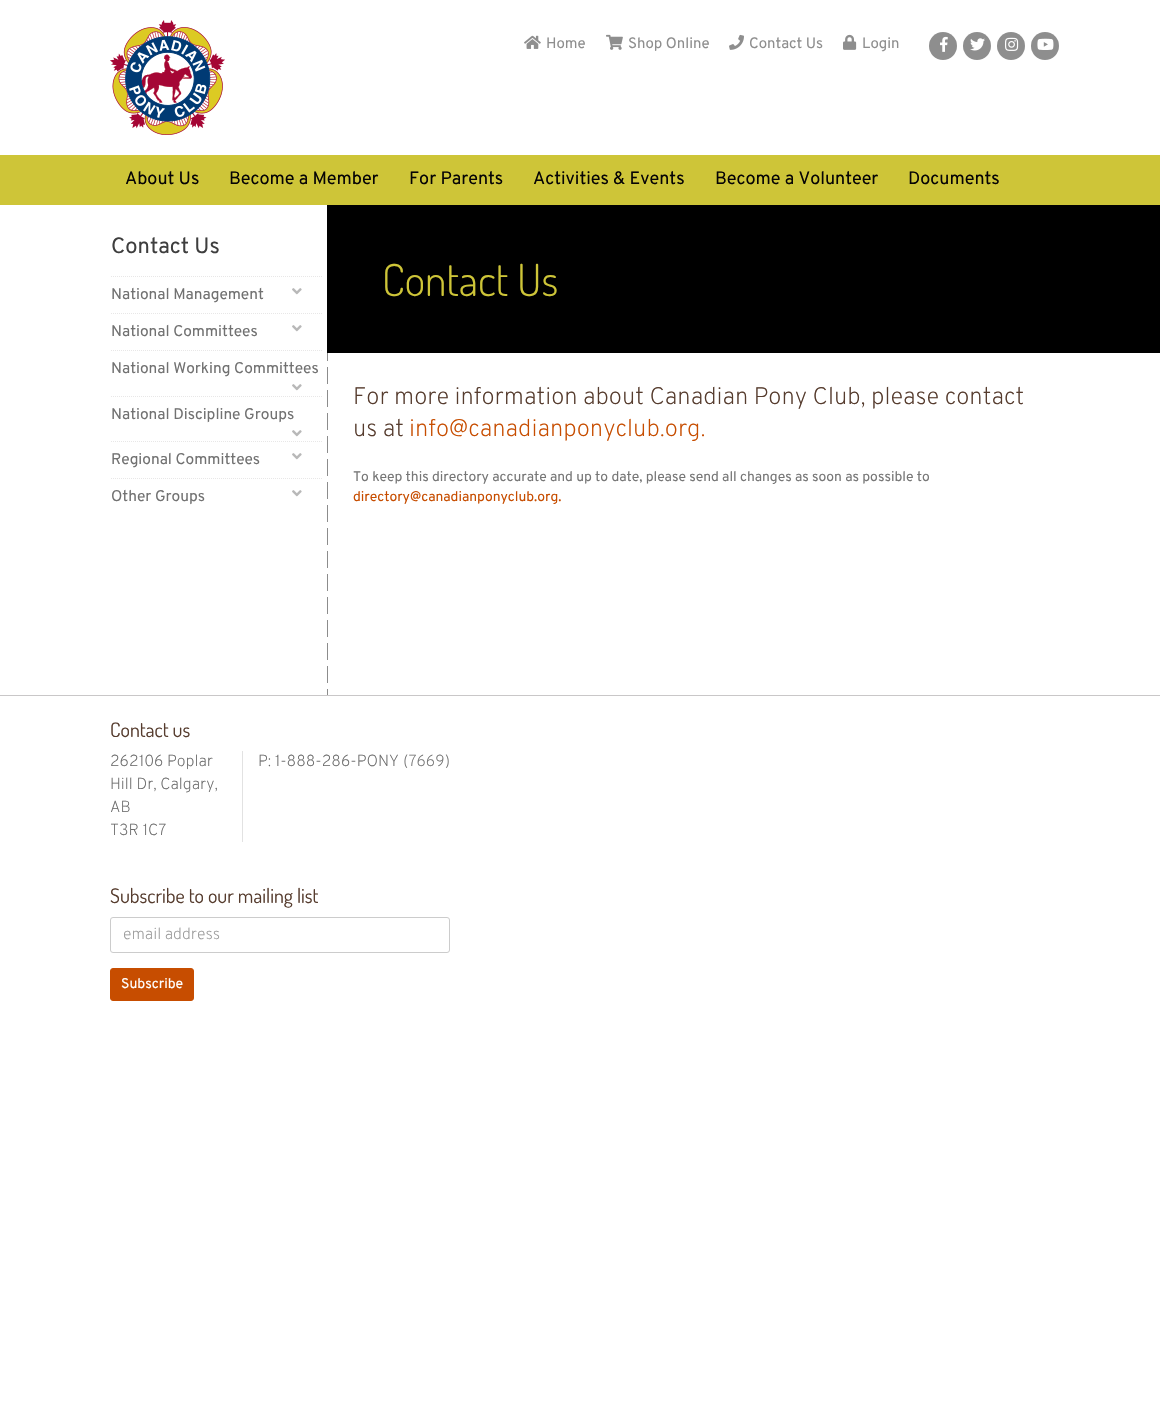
void draw(SkCanvas* canvas) {
    SkPaint paint;
    paint.setAntiAlias(true);
    canvas->clear(0xFFFFFFFF);
    canvas->drawImageRect(SkImages::DeferredFromEncodedData(SkData::MakeFromFileName("img1.png")), SkRect::MakeXYWH(110, 20, 115, 115), SkSamplingOptions());
    canvas->drawImageRect(SkImages::DeferredFromEncodedData(SkData::MakeFromFileName("img2.png")), SkRect::MakeXYWH(524, 35, 17, 14), SkSamplingOptions());
    SkFont font1(fontMgr->matchFamilyStyle("Overpass", SkFontStyle::Normal()), 15);
    font1.setSubpixel(true);
    paint.setColor(0xFF8E8E8E);
    canvas->drawString("Home", 546, 48, font1, paint);
    canvas->drawImageRect(SkImages::DeferredFromEncodedData(SkData::MakeFromFileName("img3.png")), SkRect::MakeXYWH(606, 34, 17, 16), SkSamplingOptions());
    canvas->drawString("Shop Online", 628, 48, font1, paint);
    canvas->drawImageRect(SkImages::DeferredFromEncodedData(SkData::MakeFromFileName("img4.png")), SkRect::MakeXYWH(729, 34, 15, 16), SkSamplingOptions());
    canvas->drawString("Contact Us", 749, 48, font1, paint);
    canvas->drawImageRect(SkImages::DeferredFromEncodedData(SkData::MakeFromFileName("img5.png")), SkRect::MakeXYWH(843, 34, 14, 16), SkSamplingOptions());
    canvas->drawString("Login", 862, 48, font1, paint);
    canvas->drawCircle(943, 46, 14, paint);
    canvas->drawImageRect(SkImages::DeferredFromEncodedData(SkData::MakeFromFileName("img6.png")), SkRect::MakeXYWH(940, 36, 8, 16), SkSamplingOptions());
    canvas->drawCircle(977, 46, 14, paint);
    canvas->drawImageRect(SkImages::DeferredFromEncodedData(SkData::MakeFromFileName("img7.png")), SkRect::MakeXYWH(970, 38, 15, 13), SkSamplingOptions());
    canvas->drawCircle(1011, 46, 14, paint);
    canvas->drawImageRect(SkImages::DeferredFromEncodedData(SkData::MakeFromFileName("img8.png")), SkRect::MakeXYWH(1005, 37, 14, 14), SkSamplingOptions());
    canvas->drawCircle(1045, 46, 14, paint);
    canvas->drawImageRect(SkImages::DeferredFromEncodedData(SkData::MakeFromFileName("img9.png")), SkRect::MakeXYWH(1037, 38, 17, 12), SkSamplingOptions());
    paint.setColor(0xFFCEC538);
    canvas->drawRect(SkRect::MakeXYWH(0, 155, 1160, 50), paint);
    SkFont font2(fontMgr->matchFamilyStyle("Overpass", SkFontStyle::Normal()), 18);
    font2.setSubpixel(true);
    paint.setColor(0xFF060405);
    canvas->drawString("About Us", 125, 184, font2, paint);
    canvas->drawString("Become a Member", 229, 184, font2, paint);
    canvas->drawString("For Parents", 409, 184, font2, paint);
    canvas->drawString("Activities & Events", 533, 184, font2, paint);
    canvas->drawString("Become a Volunteer", 715, 184, font2, paint);
    canvas->drawString("Documents", 908, 184, font2, paint);
    paint.setColor(0xFF000000);
    canvas->drawRect(SkRect::MakeXYWH(327, 205, 833, 148), paint);
    canvas->drawImageRect(SkImages::DeferredFromEncodedData(SkData::MakeFromFileName("img10.png")), SkRect::MakeXYWH(327, 353, 1, 342), SkSamplingOptions());
    SkFont font3(fontMgr->matchFamilyStyle("Overpass", SkFontStyle::Normal()), 22);
    font3.setSubpixel(true);
    paint.setColor(0xFF3E3E3E);
    canvas->drawString("Contact Us", 111, 253, font3, paint);
    paint.setStyle(SkPaint::kStroke_Style);
    paint.setStrokeWidth(1);
    paint.setColor(0xFFE8E7E7);
    paint.setPathEffect(SkDashPathEffect::Make({{1, 1}}, 0));
    canvas->drawPath(SkPathBuilder().moveTo(111, 276.5f).lineTo(322, 276.5f).detach(), paint);
    paint.setPathEffect(nullptr);
    SkFont font4(fontMgr->matchFamilyStyle("Overpass", SkFontStyle::Normal()), 15.5f);
    font4.setSubpixel(true);
    paint.setStyle(SkPaint::kFill_Style);
    paint.setColor(0xFF717171);
    canvas->drawString("National Management", 111, 299, font4, paint);
    canvas->drawImageRect(SkImages::DeferredFromEncodedData(SkData::MakeFromFileName("img11.png")), SkRect::MakeXYWH(292, 288, 10, 7), SkSamplingOptions());
    paint.setStyle(SkPaint::kStroke_Style);
    paint.setColor(0xFFE8E7E7);
    paint.setPathEffect(SkDashPathEffect::Make({{1, 1}}, 0));
    canvas->drawPath(SkPathBuilder().moveTo(111, 313.5f).lineTo(322, 313.5f).detach(), paint);
    paint.setPathEffect(nullptr);
    paint.setStyle(SkPaint::kFill_Style);
    paint.setColor(0xFF717171);
    canvas->drawString("National Committees", 111, 336, font4, paint);
    canvas->drawImageRect(SkImages::DeferredFromEncodedData(SkData::MakeFromFileName("img11.png")), SkRect::MakeXYWH(292, 325, 10, 7), SkSamplingOptions());
    paint.setStyle(SkPaint::kStroke_Style);
    paint.setColor(0xFFE8E7E7);
    paint.setPathEffect(SkDashPathEffect::Make({{1, 1}}, 0));
    canvas->drawPath(SkPathBuilder().moveTo(111, 350.5f).lineTo(322, 350.5f).detach(), paint);
    paint.setPathEffect(nullptr);
    paint.setStyle(SkPaint::kFill_Style);
    paint.setColor(0xFF717171);
    canvas->drawString("National Working Committees", 111, 373, font4, paint);
    canvas->drawImageRect(SkImages::DeferredFromEncodedData(SkData::MakeFromFileName("img11.png")), SkRect::MakeXYWH(292, 384, 10, 7), SkSamplingOptions());
    paint.setStyle(SkPaint::kStroke_Style);
    paint.setColor(0xFFE8E7E7);
    paint.setPathEffect(SkDashPathEffect::Make({{1, 1}}, 0));
    canvas->drawPath(SkPathBuilder().moveTo(111, 396.5f).lineTo(322, 396.5f).detach(), paint);
    paint.setPathEffect(nullptr);
    paint.setStyle(SkPaint::kFill_Style);
    paint.setColor(0xFF717171);
    canvas->drawString("National Discipline Groups", 111, 419, font4, paint);
    canvas->drawImageRect(SkImages::DeferredFromEncodedData(SkData::MakeFromFileName("img11.png")), SkRect::MakeXYWH(292, 430, 10, 7), SkSamplingOptions());
    paint.setStyle(SkPaint::kStroke_Style);
    paint.setColor(0xFFE8E7E7);
    paint.setPathEffect(SkDashPathEffect::Make({{1, 1}}, 0));
    canvas->drawPath(SkPathBuilder().moveTo(111, 441.5f).lineTo(322, 441.5f).detach(), paint);
    paint.setPathEffect(nullptr);
    paint.setStyle(SkPaint::kFill_Style);
    paint.setColor(0xFF717171);
    canvas->drawString("Regional Committees", 111, 464, font4, paint);
    canvas->drawImageRect(SkImages::DeferredFromEncodedData(SkData::MakeFromFileName("img11.png")), SkRect::MakeXYWH(292, 453, 10, 7), SkSamplingOptions());
    paint.setStyle(SkPaint::kStroke_Style);
    paint.setColor(0xFFE8E7E7);
    paint.setPathEffect(SkDashPathEffect::Make({{1, 1}}, 0));
    canvas->drawPath(SkPathBuilder().moveTo(111, 478.5f).lineTo(322, 478.5f).detach(), paint);
    paint.setPathEffect(nullptr);
    paint.setStyle(SkPaint::kFill_Style);
    paint.setColor(0xFF717171);
    canvas->drawString("Other Groups", 111, 501, font4, paint);
    canvas->drawImageRect(SkImages::DeferredFromEncodedData(SkData::MakeFromFileName("img11.png")), SkRect::MakeXYWH(292, 490, 10, 7), SkSamplingOptions());
    SkFont font5(fontMgr->matchFamilyStyle("Dosis", SkFontStyle(300, SkFontStyle::kNormal_Width, SkFontStyle::kUpright_Slant)), 44);
    font5.setSubpixel(true);
    paint.setColor(0xFFCEC538);
    canvas->drawString("Contact Us", 382, 296, font5, paint);
    SkFont font6(fontMgr->matchFamilyStyle("Overpass", SkFontStyle(200, SkFontStyle::kNormal_Width, SkFontStyle::kUpright_Slant)), 24);
    font6.setSubpixel(true);
    paint.setColor(0xFF563C2E);
    canvas->drawString("For more information about Canadian Pony Club, please contact", 353, 404, font6, paint);
    canvas->drawString("us at", 353, 436, font6, paint);
    paint.setColor(0xFFC74D00);
    canvas->drawString("info@canadianponyclub.org.", 409, 436, font6, paint);
    SkFont font7(fontMgr->matchFamilyStyle("Overpass", SkFontStyle::Normal()), 13.9f);
    font7.setSubpixel(true);
    paint.setColor(0xFF777777);
    canvas->drawString("To keep this directory accurate and up to date, please send all changes as soon as possible to", 353, 481, font7, paint);
    paint.setColor(0xFFC74D00);
    canvas->drawString("directory@canadianponyclub.org.", 353, 501, font7, paint);
    paint.setColor(0xFFC9C7C8);
    canvas->drawRect(SkRect::MakeXYWH(0, 695, 1160, 1), paint);
    SkFont font8(fontMgr->matchFamilyStyle("Dosis", SkFontStyle::Normal()), 20);
    font8.setSubpixel(true);
    paint.setColor(0xFF563C2E);
    canvas->drawString("Contact us", 110, 737, font8, paint);
    paint.setColor(0xFFE2E2E2);
    canvas->drawRect(SkRect::MakeXYWH(242, 751, 1, 91), paint);
    SkFont font9(fontMgr->matchFamilyStyle("Overpass", SkFontStyle(200, SkFontStyle::kNormal_Width, SkFontStyle::kUpright_Slant)), 16);
    font9.setSubpixel(true);
    paint.setColor(0xFF6B6B6B);
    canvas->drawString("262106 Poplar", 110, 766, font9, paint);
    canvas->drawString("Hill Dr, Calgary,", 110, 789, font9, paint);
    canvas->drawString("AB", 110, 812, font9, paint);
    canvas->drawString("T3R 1C7", 110, 835, font9, paint);
    canvas->drawString("P: 1-888-286-PONY", 258, 766, font9, paint);
    paint.setColor(0xFF777777);
    canvas->drawString("(7669)", 403, 766, font9, paint);
    paint.setColor(0xFF563C2E);
    canvas->drawString("Subscribe to our mailing list", 110, 903, font8, paint);
    paint.setStyle(SkPaint::kStroke_Style);
    paint.setColor(0xFFCCCCCC);
    canvas->drawRoundRect(SkRect::MakeXYWH(110.5f, 917.5f, 339, 35), 2.5f, 2.5f, paint);
    paint.setStyle(SkPaint::kFill_Style);
    paint.setColor(0xFF999999);
    canvas->drawString("email address", 123, 939, font9, paint);
    paint.setColor(0xFFC74D00);
    canvas->drawRoundRect(SkRect::MakeXYWH(110.5f, 968.5f, 83, 32), 2.5f, 2.5f, paint);
    paint.setStyle(SkPaint::kStroke_Style);
    canvas->drawRoundRect(SkRect::MakeXYWH(110.5f, 968.5f, 83, 32), 2.5f, 2.5f, paint);
    SkFont font10(fontMgr->matchFamilyStyle("Overpass", SkFontStyle::Normal()), 14);
    font10.setSubpixel(true);
    paint.setStyle(SkPaint::kFill_Style);
    paint.setColor(0xFFFFFFFF);
    canvas->drawString("Subscribe", 121, 988, font10, paint);
}
